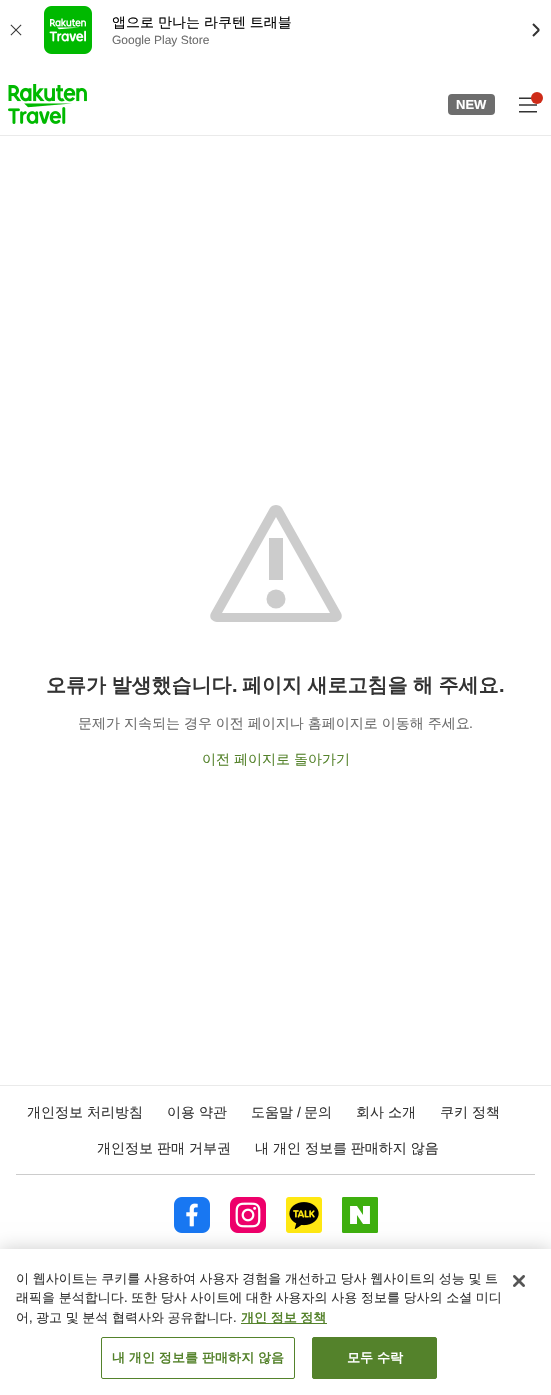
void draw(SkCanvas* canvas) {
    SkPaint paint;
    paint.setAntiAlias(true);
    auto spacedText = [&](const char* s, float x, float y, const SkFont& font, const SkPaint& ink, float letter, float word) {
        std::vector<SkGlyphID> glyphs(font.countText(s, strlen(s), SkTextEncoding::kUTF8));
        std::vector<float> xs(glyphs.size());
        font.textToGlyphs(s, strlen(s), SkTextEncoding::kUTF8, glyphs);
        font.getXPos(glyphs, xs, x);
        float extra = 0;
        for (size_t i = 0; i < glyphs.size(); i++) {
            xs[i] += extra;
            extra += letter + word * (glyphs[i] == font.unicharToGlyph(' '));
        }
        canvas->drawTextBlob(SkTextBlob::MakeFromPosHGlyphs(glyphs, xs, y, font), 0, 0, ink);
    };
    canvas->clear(0xFFFFFFFF);
    canvas->drawImageRect(SkImages::DeferredFromEncodedData(SkData::MakeFromFileName("img1.png")), SkRect::MakeXYWH(10, 24, 12, 12), SkSamplingOptions());
    canvas->drawImageRect(SkImages::DeferredFromEncodedData(SkData::MakeFromFileName("img2.png")), SkRect::MakeXYWH(44, 6, 48, 48), SkSamplingOptions());
    SkFont font1(fontMgr->matchFamilyStyle("WenQuanYi Zen Hei", SkFontStyle(500, SkFontStyle::kNormal_Width, SkFontStyle::kUpright_Slant)), 14);
    font1.setSubpixel(true);
    paint.setColor(0xFF000000);
    spacedText("앱으로 만나는 라쿠텐 트래블", 112, 27, font1, paint, 0, -0.25f);
    SkFont font2(fontMgr->matchFamilyStyle("Liberation Sans", SkFontStyle::Normal()), 12);
    font2.setSubpixel(true);
    paint.setColor(0xFF6D6D6D);
    canvas->drawString("Google Play Store", 112, 44, font2, paint);
    paint.setStyle(SkPaint::kStroke_Style);
    paint.setStrokeWidth(2);
    paint.setColor(0xFF333333);
    canvas->drawPath(SkPathBuilder().moveTo(533, 24).lineTo(538.5f, 29.5f).lineTo(538.5f, 30.5f).lineTo(533, 36).detach(), paint);
    paint.setStyle(SkPaint::kFill_Style);
    paint.setColor(0xFFEAEAEA);
    canvas->drawRect(SkRect::MakeXYWH(0, 135, 551, 1), paint);
    canvas->drawImageRect(SkImages::DeferredFromEncodedData(SkData::MakeFromFileName("img3.png")), SkRect::MakeXYWH(8, 84, 79, 40), SkSamplingOptions());
    paint.setColor(0xFF6D6D6D);
    canvas->drawRoundRect(SkRect::MakeXYWH(448, 94, 47, 21), 4, 4, paint);
    SkFont font3(fontMgr->matchFamilyStyle("Liberation Sans", SkFontStyle::Bold()), 13);
    font3.setSubpixel(true);
    paint.setColor(0xFFFFFFFF);
    canvas->drawString("NEW", 456, 109, font3, paint);
    canvas->drawImageRect(SkImages::DeferredFromEncodedData(SkData::MakeFromFileName("img4.png")), SkRect::MakeXYWH(519, 97, 18, 16), SkSamplingOptions());
    paint.setColor(0xFFCE2B18);
    canvas->drawCircle(537, 98, 6, paint);
    paint.setColor(0xFFCCCCCC);
    canvas->drawPath(SkPathBuilder(SkPathFillType::kEvenOdd).moveTo(341, 613).lineTo(282, 508).cubicTo(281, 506, 278, 505, 276, 505).cubicTo(274, 505, 271, 506, 270, 508).lineTo(211, 613).cubicTo(210, 615, 210, 617, 211, 619).cubicTo(213, 621, 215, 622, 217, 622).lineTo(335, 622).cubicTo(337, 622, 339, 621, 341, 619).cubicTo(342, 617, 342, 615, 341, 613).close().moveTo(222, 613).lineTo(276, 517).lineTo(330, 613).close().detach(), paint);
    canvas->drawRect(SkRect::MakeXYWH(269, 538, 14, 42), paint);
    canvas->drawCircle(276, 599, 9.5f, paint);
    SkFont font4(fontMgr->matchFamilyStyle("WenQuanYi Zen Hei", SkFontStyle::Bold()), 20);
    font4.setSubpixel(true);
    paint.setColor(0xFF333333);
    spacedText("오류가 발생했습니다", 46, 692, font4, paint, 0, -0.5f);
    SkFont font5(fontMgr->matchFamilyStyle("Liberation Sans", SkFontStyle::Bold()), 20);
    font5.setSubpixel(true);
    canvas->drawString(".", 232, 692, font5, paint);
    spacedText("페이지 새로고침을 해 주세요", 242, 692, font4, paint, 0, -0.5f);
    canvas->drawString(".", 499, 692, font5, paint);
    paint.setColor(0xFF6D6D6D);
    spacedText("문제가 지속되는 경우 이전 페이지나 홈페이지로 이동해 주세요", 78, 728, font1, paint, 0, -0.25f);
    SkFont font6(fontMgr->matchFamilyStyle("Liberation Sans", SkFontStyle::Normal()), 14);
    font6.setSubpixel(true);
    canvas->drawString(".", 469, 728, font6, paint);
    paint.setColor(0xFF54822B);
    spacedText("이전 페이지로 돌아가기", 202, 764, font1, paint, 0, -0.25f);
    paint.setColor(0xFFEAEAEA);
    canvas->drawRect(SkRect::MakeXYWH(0, 1085, 551, 1), paint);
    paint.setColor(0xFFCCCCCC);
    canvas->drawRect(SkRect::MakeXYWH(16, 1174, 519, 1), paint);
    paint.setColor(0xFF333333);
    spacedText("개인정보 처리방침", 27, 1117, font1, paint, 0, -0.25f);
    spacedText("이용 약관", 167, 1117, font1, paint, 0, -0.25f);
    canvas->drawString("도움말", 251, 1117, font1, paint);
    canvas->drawString("/", 297, 1117, font6, paint);
    canvas->drawString("문의", 304, 1117, font1, paint);
    spacedText("회사 소개", 356, 1117, font1, paint, 0, -0.25f);
    spacedText("쿠키 정책", 440, 1117, font1, paint, 0, -0.25f);
    spacedText("개인정보 판매 거부권", 97, 1153, font1, paint, 0, -0.25f);
    spacedText("내 개인 정보를 판매하지 않음", 255, 1153, font1, paint, 0, -0.25f);
    canvas->drawImageRect(SkImages::DeferredFromEncodedData(SkData::MakeFromFileName("img5.png")), SkRect::MakeXYWH(174, 1197, 36, 36), SkSamplingOptions());
    canvas->drawImageRect(SkImages::DeferredFromEncodedData(SkData::MakeFromFileName("img6.png")), SkRect::MakeXYWH(230, 1197, 36, 36), SkSamplingOptions());
    canvas->drawImageRect(SkImages::DeferredFromEncodedData(SkData::MakeFromFileName("img7.png")), SkRect::MakeXYWH(286, 1197, 36, 36), SkSamplingOptions());
    canvas->drawImageRect(SkImages::DeferredFromEncodedData(SkData::MakeFromFileName("img8.png")), SkRect::MakeXYWH(342, 1197, 36, 36), SkSamplingOptions());
    paint.setColor(0x33000000);
    paint.setMaskFilter(SkMaskFilter::MakeBlur(kNormal_SkBlurStyle, 9));
    canvas->drawRect(SkRect::MakeXYWH(0, 1249, 551, 146), paint);
    paint.setMaskFilter(nullptr);
    paint.setColor(0xFFFFFFFF);
    canvas->drawRect(SkRect::MakeXYWH(0, 1249, 551, 146), paint);
    SkFont font7(fontMgr->matchFamilyStyle("WenQuanYi Zen Hei", SkFontStyle(500, SkFontStyle::kNormal_Width, SkFontStyle::kUpright_Slant)), 13);
    font7.setSubpixel(true);
    paint.setColor(0xFF333333);
    spacedText("이 웹사이트는 쿠키를 사용하여 사용자 경험을 개선하고 당사 웹사이트의 성능 및 트", 16, 1283, font7, paint, 0, -0.25f);
    spacedText("래픽을 분석합니다", 16, 1302, font7, paint, 0, -0.25f);
    SkFont font8(fontMgr->matchFamilyStyle("Liberation Sans", SkFontStyle::Normal()), 13);
    font8.setSubpixel(true);
    canvas->drawString(".", 124, 1302, font8, paint);
    spacedText("또한 당사 사이트에 대한 사용자의 사용 정보를 당사의 소셜 미디", 131, 1302, font7, paint, 0, -0.25f);
    canvas->drawString("어", 16, 1322, font7, paint);
    canvas->drawString(",", 29, 1322, font8, paint);
    spacedText("광고 및 분석 협력사와 공유합니다", 36, 1322, font7, paint, 0, -0.25f);
    canvas->drawString(".", 233, 1322, font8, paint);
    paint.setColor(0xFF54822B);
    canvas->drawRect(SkRect::MakeXYWH(241, 1323, 86, 1), paint);
    SkFont font9(fontMgr->matchFamilyStyle("WenQuanYi Zen Hei", SkFontStyle::Bold()), 13);
    font9.setSubpixel(true);
    spacedText("개인 정보 정책", 241, 1322, font9, paint, 0, -0.25f);
    paint.setStyle(SkPaint::kStroke_Style);
    paint.setStrokeWidth(1);
    canvas->drawRoundRect(SkRect::MakeXYWH(101.5f, 1337.5f, 193, 41), 1.5f, 1.5f, paint);
    paint.setStyle(SkPaint::kFill_Style);
    spacedText("내 개인 정보를 판매하지 않음", 112, 1362, font9, paint, 0.1f, -0.25f);
    canvas->drawRoundRect(SkRect::MakeXYWH(312.5f, 1337.5f, 124, 41), 1.5f, 1.5f, paint);
    paint.setStyle(SkPaint::kStroke_Style);
    canvas->drawRoundRect(SkRect::MakeXYWH(312.5f, 1337.5f, 124, 41), 1.5f, 1.5f, paint);
    paint.setStyle(SkPaint::kFill_Style);
    paint.setColor(0xFFFFFFFF);
    spacedText("모두 수락", 347, 1362, font9, paint, 0.1f, -0.25f);
    canvas->drawImageRect(SkImages::DeferredFromEncodedData(SkData::MakeFromFileName("img9.png")), SkRect::MakeXYWH(513, 1275, 12, 12), SkSamplingOptions());
}
